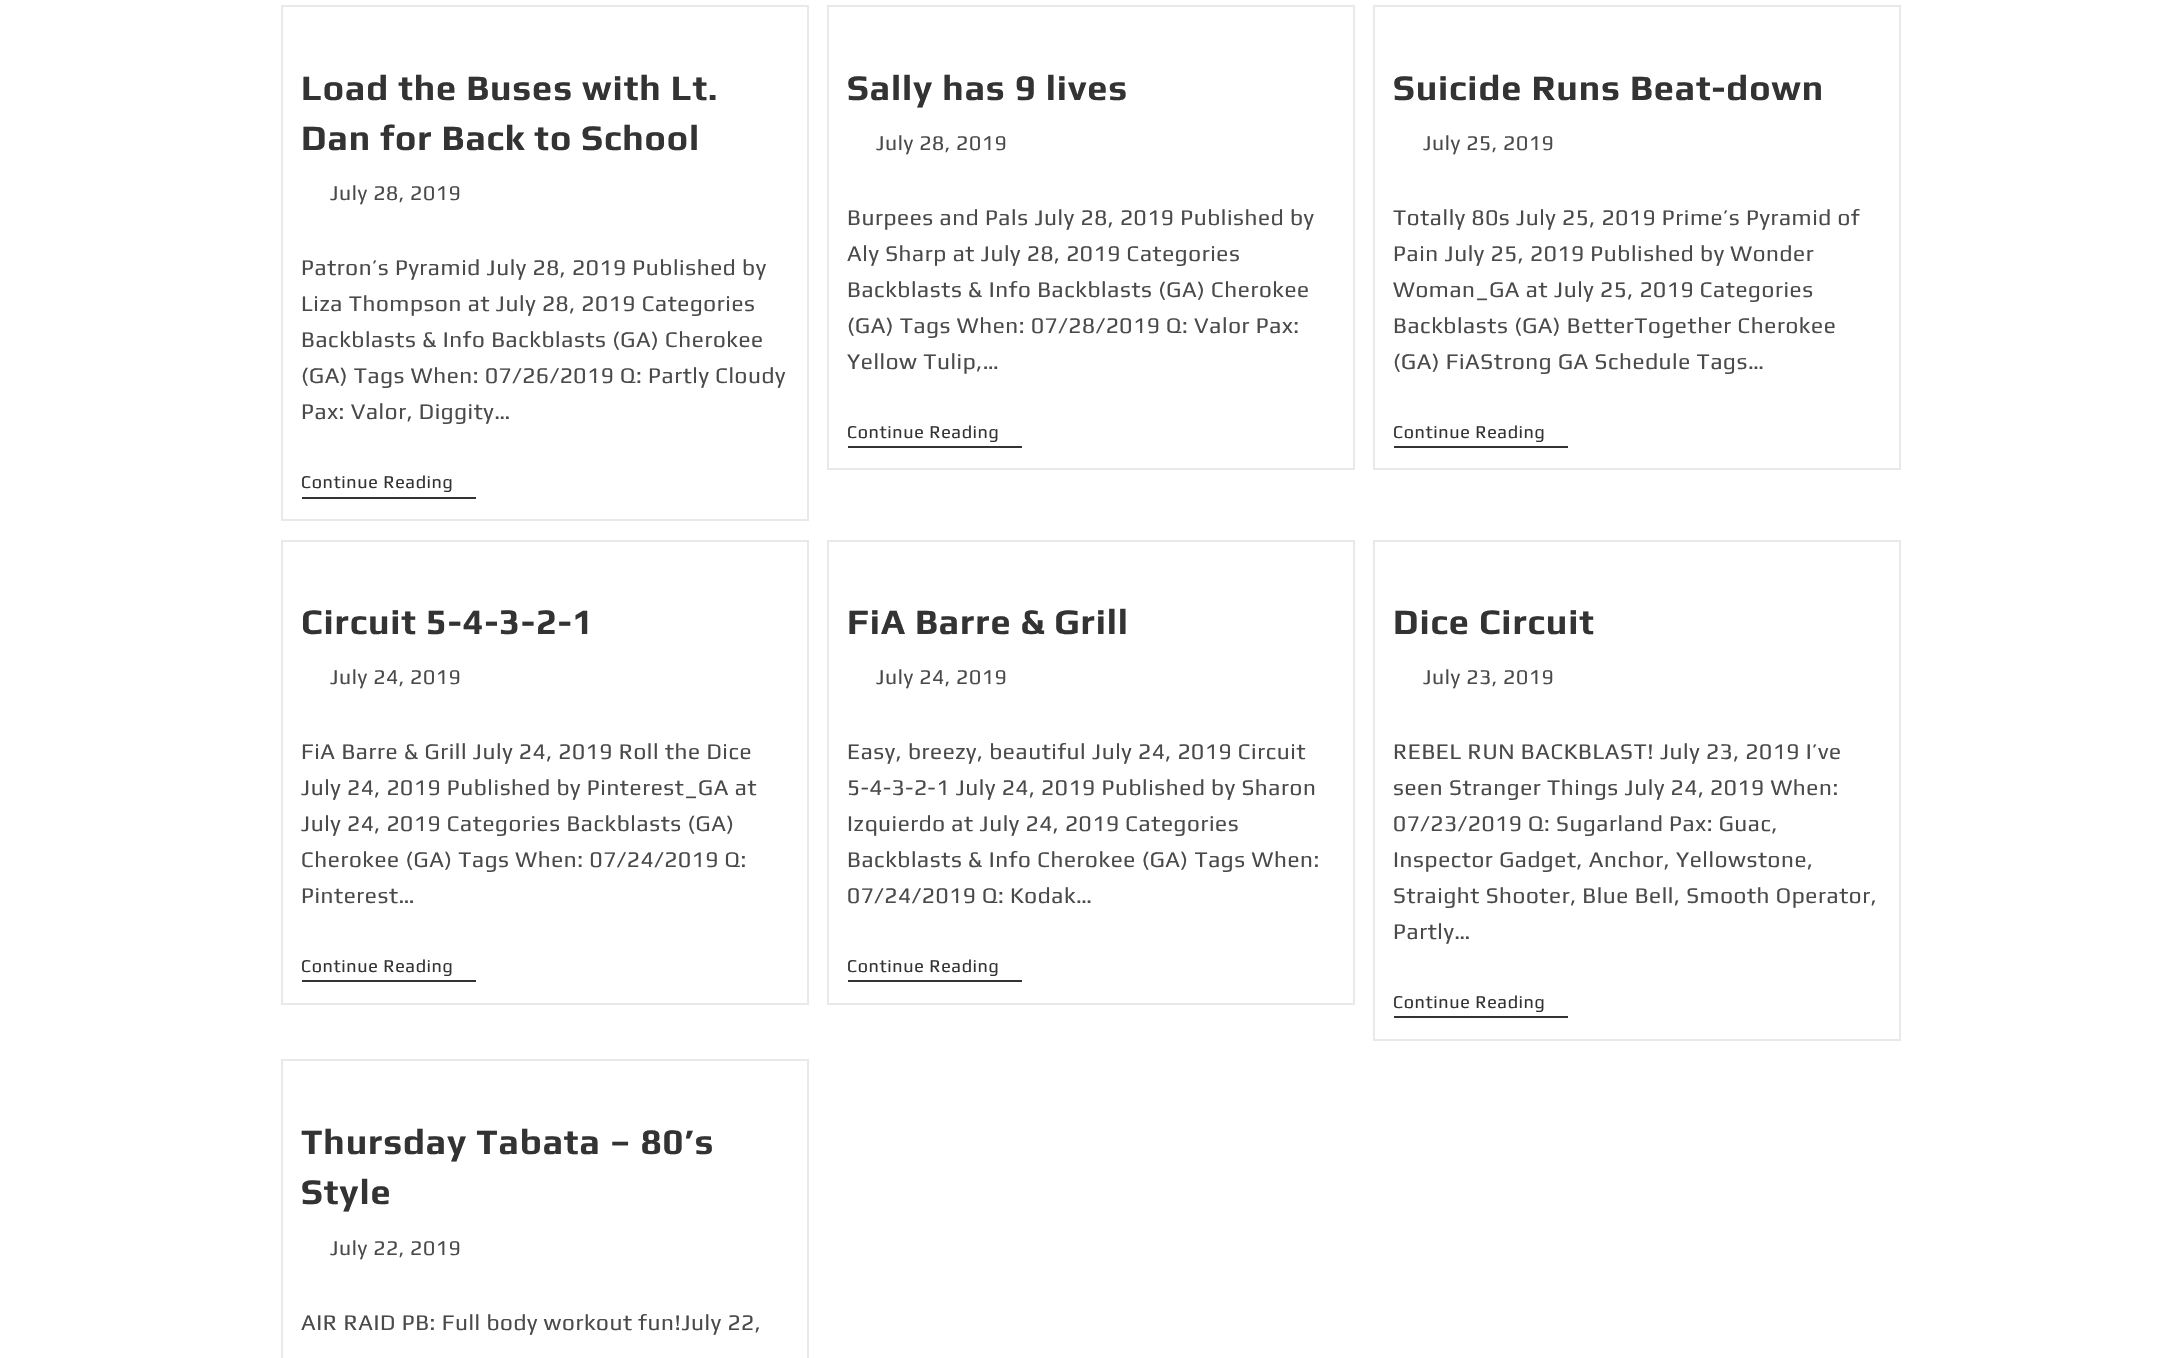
void draw(SkCanvas* canvas) {
    SkPaint paint;
    paint.setAntiAlias(true);
    auto spacedText = [&](const char* s, float x, float y, const SkFont& font, const SkPaint& ink, float letter, float word) {
        std::vector<SkGlyphID> glyphs(font.countText(s, strlen(s), SkTextEncoding::kUTF8));
        std::vector<float> xs(glyphs.size());
        font.textToGlyphs(s, strlen(s), SkTextEncoding::kUTF8, glyphs);
        font.getXPos(glyphs, xs, x);
        float extra = 0;
        for (size_t i = 0; i < glyphs.size(); i++) {
            xs[i] += extra;
            extra += letter + word * (glyphs[i] == font.unicharToGlyph(' '));
        }
        canvas->drawTextBlob(SkTextBlob::MakeFromPosHGlyphs(glyphs, xs, y, font), 0, 0, ink);
    };
    canvas->clear(0xFFFFFFFF);
    paint.setStyle(SkPaint::kStroke_Style);
    paint.setStrokeWidth(2);
    paint.setColor(0xFFE9E9E9);
    canvas->drawRect(SkRect::MakeXYWH(282, 6, 526, 514), paint);
    SkFont font1(fontMgr->matchFamilyStyle("Play", SkFontStyle::Bold()), 36);
    font1.setSubpixel(true);
    paint.setStyle(SkPaint::kFill_Style);
    paint.setColor(0xFF333333);
    spacedText("Load the Buses with Lt.", 301, 100, font1, paint, 0.9f, 0);
    spacedText("Dan for Back to School", 301, 150, font1, paint, 0.9f, 0);
    SkFont font2(fontMgr->matchFamilyStyle("Play", SkFontStyle::Normal()), 21);
    font2.setSubpixel(true);
    paint.setColor(0xFF4A4A4A);
    spacedText("July 28, 2019", 330, 200, font2, paint, 0.6f, 0);
    SkFont font3(fontMgr->matchFamilyStyle("Play", SkFontStyle::Normal()), 22.5f);
    font3.setSubpixel(true);
    spacedText("Patron’s Pyramid July 28, 2019 Published by", 301, 275, font3, paint, 0.6f, 0);
    spacedText("Liza Thompson at July 28, 2019 Categories", 301, 311, font3, paint, 0.6f, 0);
    spacedText("Backblasts & Info Backblasts (GA) Cherokee", 301, 347, font3, paint, 0.6f, 0);
    spacedText("(GA) Tags When: 07/26/2019 Q: Partly Cloudy", 301, 383, font3, paint, 0.6f, 0);
    spacedText("Pax: Valor, Diggity…", 301, 419, font3, paint, 0.6f, 0);
    paint.setColor(0xFF333333);
    canvas->drawRect(SkRect::MakeXYWH(302, 497, 174, 2), paint);
    SkFont font4(fontMgr->matchFamilyStyle("Play", SkFontStyle::Normal()), 18);
    font4.setSubpixel(true);
    spacedText("Continue Reading", 301, 488, font4, paint, 0.6f, 0);
    paint.setStyle(SkPaint::kStroke_Style);
    paint.setColor(0xFFE9E9E9);
    canvas->drawRect(SkRect::MakeXYWH(828, 6, 526, 463), paint);
    paint.setStyle(SkPaint::kFill_Style);
    paint.setColor(0xFF333333);
    spacedText("Sally has 9 lives", 847, 100, font1, paint, 0.9f, 0);
    paint.setColor(0xFF4A4A4A);
    spacedText("July 28, 2019", 876, 150, font2, paint, 0.6f, 0);
    spacedText("Burpees and Pals July 28, 2019 Published by", 847, 225, font3, paint, 0.6f, 0);
    spacedText("Aly Sharp at July 28, 2019 Categories", 847, 261, font3, paint, 0.6f, 0);
    spacedText("Backblasts & Info Backblasts (GA) Cherokee", 847, 297, font3, paint, 0.6f, 0);
    spacedText("(GA) Tags When: 07/28/2019 Q: Valor Pax:", 847, 333, font3, paint, 0.6f, 0);
    spacedText("Yellow Tulip,…", 847, 369, font3, paint, 0.6f, 0);
    paint.setColor(0xFF333333);
    canvas->drawRect(SkRect::MakeXYWH(848, 446, 174, 2), paint);
    spacedText("Continue Reading", 847, 438, font4, paint, 0.6f, 0);
    paint.setStyle(SkPaint::kStroke_Style);
    paint.setColor(0xFFE9E9E9);
    canvas->drawRect(SkRect::MakeXYWH(1374, 6, 526, 463), paint);
    paint.setStyle(SkPaint::kFill_Style);
    paint.setColor(0xFF333333);
    spacedText("Suicide Runs Beat-down", 1393, 100, font1, paint, 0.9f, 0);
    paint.setColor(0xFF4A4A4A);
    spacedText("July 25, 2019", 1423, 150, font2, paint, 0.6f, 0);
    spacedText("Totally 80s July 25, 2019 Prime’s Pyramid of", 1393, 225, font3, paint, 0.6f, 0);
    spacedText("Pain July 25, 2019 Published by Wonder", 1393, 261, font3, paint, 0.6f, 0);
    spacedText("Woman_GA at July 25, 2019 Categories", 1393, 297, font3, paint, 0.6f, 0);
    spacedText("Backblasts (GA) BetterTogether Cherokee", 1393, 333, font3, paint, 0.6f, 0);
    spacedText("(GA) FiAStrong GA Schedule Tags…", 1393, 369, font3, paint, 0.6f, 0);
    paint.setColor(0xFF333333);
    canvas->drawRect(SkRect::MakeXYWH(1394, 446, 174, 2), paint);
    spacedText("Continue Reading", 1393, 438, font4, paint, 0.6f, 0);
    paint.setStyle(SkPaint::kStroke_Style);
    paint.setColor(0xFFE9E9E9);
    canvas->drawRect(SkRect::MakeXYWH(282, 541, 526, 463), paint);
    paint.setStyle(SkPaint::kFill_Style);
    paint.setColor(0xFF333333);
    spacedText("Circuit 5-4-3-2-1", 301, 634, font1, paint, 0.9f, 0);
    paint.setColor(0xFF4A4A4A);
    spacedText("July 24, 2019", 330, 684, font2, paint, 0.6f, 0);
    spacedText("FiA Barre & Grill July 24, 2019 Roll the Dice", 301, 759, font3, paint, 0.6f, 0);
    spacedText("July 24, 2019 Published by Pinterest_GA at", 301, 795, font3, paint, 0.6f, 0);
    spacedText("July 24, 2019 Categories Backblasts (GA)", 301, 831, font3, paint, 0.6f, 0);
    spacedText("Cherokee (GA) Tags When: 07/24/2019 Q:", 301, 867, font3, paint, 0.6f, 0);
    spacedText("Pinterest…", 301, 903, font3, paint, 0.6f, 0);
    paint.setColor(0xFF333333);
    canvas->drawRect(SkRect::MakeXYWH(302, 980, 174, 2), paint);
    spacedText("Continue Reading", 301, 972, font4, paint, 0.6f, 0);
    paint.setStyle(SkPaint::kStroke_Style);
    paint.setColor(0xFFE9E9E9);
    canvas->drawRect(SkRect::MakeXYWH(828, 541, 526, 463), paint);
    paint.setStyle(SkPaint::kFill_Style);
    paint.setColor(0xFF333333);
    spacedText("FiA Barre & Grill", 847, 634, font1, paint, 0.9f, 0);
    paint.setColor(0xFF4A4A4A);
    spacedText("July 24, 2019", 876, 684, font2, paint, 0.6f, 0);
    spacedText("Easy, breezy, beautiful July 24, 2019 Circuit", 847, 759, font3, paint, 0.6f, 0);
    spacedText("5-4-3-2-1 July 24, 2019 Published by Sharon", 847, 795, font3, paint, 0.6f, 0);
    spacedText("Izquierdo at July 24, 2019 Categories", 847, 831, font3, paint, 0.6f, 0);
    spacedText("Backblasts & Info Cherokee (GA) Tags When:", 847, 867, font3, paint, 0.6f, 0);
    spacedText("07/24/2019 Q: Kodak…", 847, 903, font3, paint, 0.6f, 0);
    paint.setColor(0xFF333333);
    canvas->drawRect(SkRect::MakeXYWH(848, 980, 174, 2), paint);
    spacedText("Continue Reading", 847, 972, font4, paint, 0.6f, 0);
    paint.setStyle(SkPaint::kStroke_Style);
    paint.setColor(0xFFE9E9E9);
    canvas->drawRect(SkRect::MakeXYWH(1374, 541, 526, 499), paint);
    paint.setStyle(SkPaint::kFill_Style);
    paint.setColor(0xFF333333);
    spacedText("Dice Circuit", 1393, 634, font1, paint, 0.9f, 0);
    paint.setColor(0xFF4A4A4A);
    spacedText("July 23, 2019", 1423, 684, font2, paint, 0.6f, 0);
    spacedText("REBEL RUN BACKBLAST! July 23, 2019 I’ve", 1393, 759, font3, paint, 0.6f, 0);
    spacedText("seen Stranger Things July 24, 2019 When:", 1393, 795, font3, paint, 0.6f, 0);
    spacedText("07/23/2019 Q: Sugarland Pax: Guac,", 1393, 831, font3, paint, 0.6f, 0);
    spacedText("Inspector Gadget, Anchor, Yellowstone,", 1393, 867, font3, paint, 0.6f, 0);
    spacedText("Straight Shooter, Blue Bell, Smooth Operator,", 1393, 903, font3, paint, 0.6f, 0);
    spacedText("Partly…", 1393, 939, font3, paint, 0.6f, 0);
    paint.setColor(0xFF333333);
    canvas->drawRect(SkRect::MakeXYWH(1394, 1016, 174, 2), paint);
    spacedText("Continue Reading", 1393, 1008, font4, paint, 0.6f, 0);
    paint.setStyle(SkPaint::kStroke_Style);
    paint.setColor(0xFFE9E9E9);
    canvas->drawRect(SkRect::MakeXYWH(282, 1060, 526, 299), paint);
    paint.setStyle(SkPaint::kFill_Style);
    paint.setColor(0xFF333333);
    spacedText("Thursday Tabata – 80’s", 301, 1154, font1, paint, 0.9f, 0);
    spacedText("Style", 301, 1204, font1, paint, 0.9f, 0);
    paint.setColor(0xFF4A4A4A);
    spacedText("July 22, 2019", 330, 1255, font2, paint, 0.6f, 0);
    spacedText("AIR RAID PB: Full body workout fun!July 22,", 301, 1330, font3, paint, 0.6f, 0);
}
